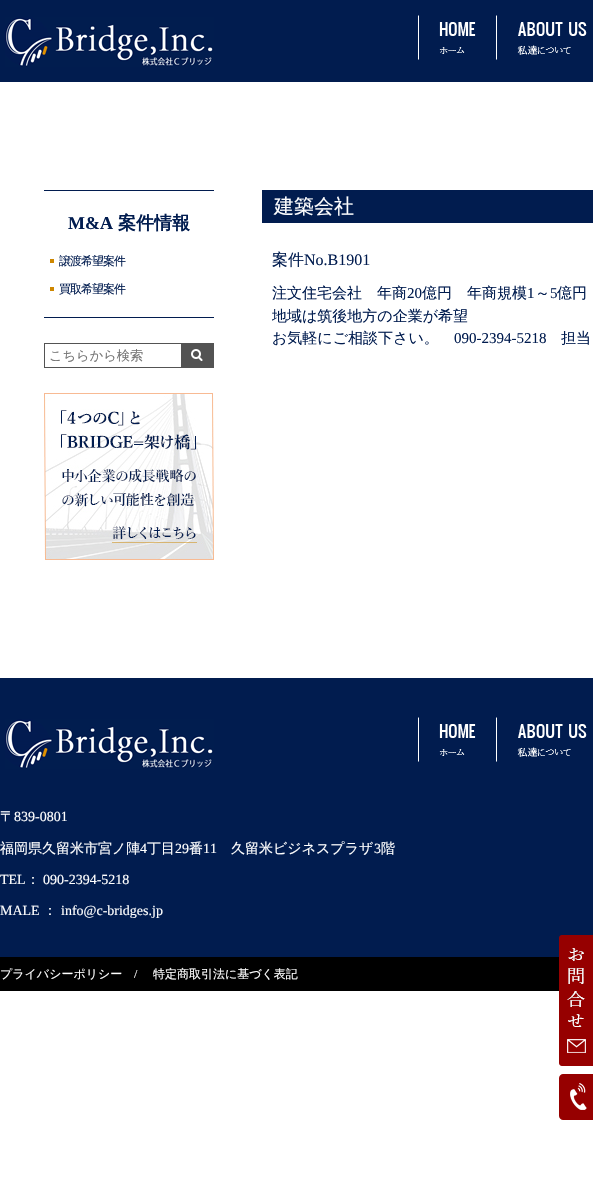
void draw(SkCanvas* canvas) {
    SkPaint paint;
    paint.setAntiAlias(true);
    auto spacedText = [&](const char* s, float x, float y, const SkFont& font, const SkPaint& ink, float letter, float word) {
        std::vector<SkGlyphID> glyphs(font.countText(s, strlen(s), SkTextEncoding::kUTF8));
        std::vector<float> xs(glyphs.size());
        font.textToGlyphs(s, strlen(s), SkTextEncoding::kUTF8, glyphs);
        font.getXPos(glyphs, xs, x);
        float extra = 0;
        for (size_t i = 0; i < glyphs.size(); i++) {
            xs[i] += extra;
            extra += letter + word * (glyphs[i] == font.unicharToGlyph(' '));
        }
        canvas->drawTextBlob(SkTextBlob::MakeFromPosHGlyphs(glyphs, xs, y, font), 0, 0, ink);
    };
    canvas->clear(0xFFFFFFFF);
    paint.setColor(0xFF011C4F);
    canvas->drawRect(SkRect::MakeXYWH(0, 0, 593, 82), paint);
    canvas->drawImageRect(SkImages::DeferredFromEncodedData(SkData::MakeFromFileName("img1.png")), SkRect::MakeXYWH(5, 17, 209, 50), SkSamplingOptions());
    canvas->drawImageRect(SkImages::DeferredFromEncodedData(SkData::MakeFromFileName("img2.png")), SkRect::MakeXYWH(418, 15, 58, 45), SkSamplingOptions());
    canvas->drawImageRect(SkImages::DeferredFromEncodedData(SkData::MakeFromFileName("img3.png")), SkRect::MakeXYWH(496, 15, 91, 45), SkSamplingOptions());
    canvas->drawRect(SkRect::MakeXYWH(0, 678, 593, 279), paint);
    canvas->drawImageRect(SkImages::DeferredFromEncodedData(SkData::MakeFromFileName("img4.png")), SkRect::MakeXYWH(559, 935, 34, 131), SkSamplingOptions());
    paint.setColor(0xFF960000);
    canvas->drawPath(SkPathBuilder().moveTo(563, 1074).lineTo(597, 1074).lineTo(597, 1120).lineTo(563, 1120).cubicTo(561, 1120, 559, 1118, 559, 1116).lineTo(559, 1078).cubicTo(559, 1076, 561, 1074, 563, 1074).close().detach(), paint);
    canvas->drawImageRect(SkImages::DeferredFromEncodedData(SkData::MakeFromFileName("img5.png")), SkRect::MakeXYWH(570, 1083, 17, 27), SkSamplingOptions());
    paint.setColor(0xFF011C4F);
    canvas->drawRect(SkRect::MakeXYWH(44, 190, 170, 1), paint);
    SkFont font1(fontMgr->matchFamilyStyle("Liberation Serif", SkFontStyle::Bold()), 18);
    font1.setSubpixel(true);
    canvas->drawString("M&A", 68, 229, font1, paint);
    SkFont font2(fontMgr->matchFamilyStyle("WenQuanYi Zen Hei", SkFontStyle::Bold()), 18);
    font2.setSubpixel(true);
    canvas->drawString("案件情報", 118, 229, font2, paint);
    paint.setColor(0xFFCE8700);
    canvas->drawRect(SkRect::MakeXYWH(50, 259, 4, 4), paint);
    SkFont font3(fontMgr->matchFamilyStyle("WenQuanYi Zen Hei", SkFontStyle(500, SkFontStyle::kNormal_Width, SkFontStyle::kUpright_Slant)), 12);
    font3.setSubpixel(true);
    paint.setColor(0xFF011C4F);
    spacedText("譲渡希望案件", 59, 265, font3, paint, -1, 0);
    paint.setColor(0xFFCE8700);
    canvas->drawRect(SkRect::MakeXYWH(50, 287, 4, 4), paint);
    paint.setColor(0xFF011C4F);
    spacedText("買取希望案件", 59, 293, font3, paint, -1, 0);
    canvas->drawRect(SkRect::MakeXYWH(44, 317, 170, 1), paint);
    paint.setStyle(SkPaint::kStroke_Style);
    paint.setStrokeWidth(1);
    paint.setColor(0xFF535353);
    canvas->drawRect(SkRect::MakeXYWH(44.5f, 343.5f, 169, 24), paint);
    SkFont font4(fontMgr->matchFamilyStyle("WenQuanYi Zen Hei", SkFontStyle(500, SkFontStyle::kNormal_Width, SkFontStyle::kUpright_Slant)), 13.25f);
    font4.setSubpixel(true);
    paint.setStyle(SkPaint::kFill_Style);
    paint.setColor(0xFF757575);
    canvas->drawString("こちらから検索", 49, 360, font4, paint);
    canvas->drawImageRect(SkImages::DeferredFromEncodedData(SkData::MakeFromFileName("img6.png")), SkRect::MakeXYWH(181, 344, 32, 23), SkSamplingOptions());
    canvas->drawImageRect(SkImages::DeferredFromEncodedData(SkData::MakeFromFileName("img7.png")), SkRect::MakeXYWH(44, 393, 170, 167), SkSamplingOptions());
    paint.setColor(0xFF011C4F);
    canvas->drawRect(SkRect::MakeXYWH(262, 190, 331, 33), paint);
    SkFont font5(fontMgr->matchFamilyStyle("WenQuanYi Zen Hei", SkFontStyle(500, SkFontStyle::kNormal_Width, SkFontStyle::kUpright_Slant)), 20);
    font5.setSubpixel(true);
    paint.setColor(0xFFFFFFFF);
    canvas->drawString("建築会社", 274, 213, font5, paint);
    SkFont font6(fontMgr->matchFamilyStyle("WenQuanYi Zen Hei", SkFontStyle(500, SkFontStyle::kNormal_Width, SkFontStyle::kUpright_Slant)), 16);
    font6.setSubpixel(true);
    paint.setColor(0xFF011C4F);
    canvas->drawString("案件", 272, 265, font6, paint);
    SkFont font7(fontMgr->matchFamilyStyle("Liberation Serif", SkFontStyle::Normal()), 16);
    font7.setSubpixel(true);
    canvas->drawString("No.B1901", 304, 265, font7, paint);
    SkFont font8(fontMgr->matchFamilyStyle("WenQuanYi Zen Hei", SkFontStyle(500, SkFontStyle::kNormal_Width, SkFontStyle::kUpright_Slant)), 15);
    font8.setSubpixel(true);
    canvas->drawString("注文住宅会社　年商", 272, 298, font8, paint);
    SkFont font9(fontMgr->matchFamilyStyle("Liberation Serif", SkFontStyle::Normal()), 15);
    font9.setSubpixel(true);
    canvas->drawString("20", 407, 298, font9, paint);
    canvas->drawString("億円　年商規模", 422, 298, font8, paint);
    canvas->drawString("1", 527, 298, font9, paint);
    canvas->drawString("～", 535, 298, font8, paint);
    canvas->drawString("5", 550, 298, font9, paint);
    canvas->drawString("億円", 557, 298, font8, paint);
    canvas->drawString("地域は筑後地方の企業が希望", 272, 321, font8, paint);
    canvas->drawString("お気軽にご相談下さい。", 272, 343, font8, paint);
    canvas->drawString("090-2394-5218", 454, 343, font9, paint);
    canvas->drawString("担当", 561, 343, font8, paint);
    canvas->drawImageRect(SkImages::DeferredFromEncodedData(SkData::MakeFromFileName("img2.png")), SkRect::MakeXYWH(418, 717, 58, 45), SkSamplingOptions());
    canvas->drawImageRect(SkImages::DeferredFromEncodedData(SkData::MakeFromFileName("img3.png")), SkRect::MakeXYWH(496, 717, 91, 45), SkSamplingOptions());
    canvas->drawImageRect(SkImages::DeferredFromEncodedData(SkData::MakeFromFileName("img1.png")), SkRect::MakeXYWH(5, 719, 209, 50), SkSamplingOptions());
    SkFont font10(fontMgr->matchFamilyStyle("WenQuanYi Zen Hei", SkFontStyle(500, SkFontStyle::kNormal_Width, SkFontStyle::kUpright_Slant)), 14);
    font10.setSubpixel(true);
    paint.setColor(0xFFFFFFFF);
    canvas->drawString("〒", 0, 821, font10, paint);
    SkFont font11(fontMgr->matchFamilyStyle("Liberation Serif", SkFontStyle::Normal()), 14);
    font11.setSubpixel(true);
    canvas->drawString("839-0801", 14, 821, font11, paint);
    canvas->drawString("福岡県久留米市宮ノ陣", 0, 853, font10, paint);
    canvas->drawString("4", 140, 853, font11, paint);
    canvas->drawString("丁目", 147, 853, font10, paint);
    canvas->drawString("29", 175, 853, font11, paint);
    canvas->drawString("番", 189, 853, font10, paint);
    canvas->drawString("11", 203, 853, font11, paint);
    canvas->drawString("久留米ビジネスプラザ", 231, 853, font10, paint);
    canvas->drawString("3", 374, 853, font11, paint);
    canvas->drawString("階", 381, 853, font10, paint);
    canvas->drawString("TEL", 0, 884, font11, paint);
    canvas->drawString("：", 26, 884, font10, paint);
    canvas->drawString("090-2394-5218", 43, 884, font11, paint);
    canvas->drawString("MALE", 0, 915, font11, paint);
    canvas->drawString("：", 43, 915, font10, paint);
    canvas->drawString("info@c-bridges.jp", 61, 915, font11, paint);
    paint.setColor(0xFF000000);
    canvas->drawRect(SkRect::MakeXYWH(0, 957, 559, 34), paint);
    paint.setColor(0xFFFFFFFF);
    canvas->drawString("プライバシーポリシー", 0, 978, font3, paint);
    SkFont font12(fontMgr->matchFamilyStyle("Liberation Serif", SkFontStyle::Normal()), 12);
    font12.setSubpixel(true);
    canvas->drawString("/", 134, 978, font12, paint);
    canvas->drawString("特定商取引法に基づく表記", 153, 978, font3, paint);
}
